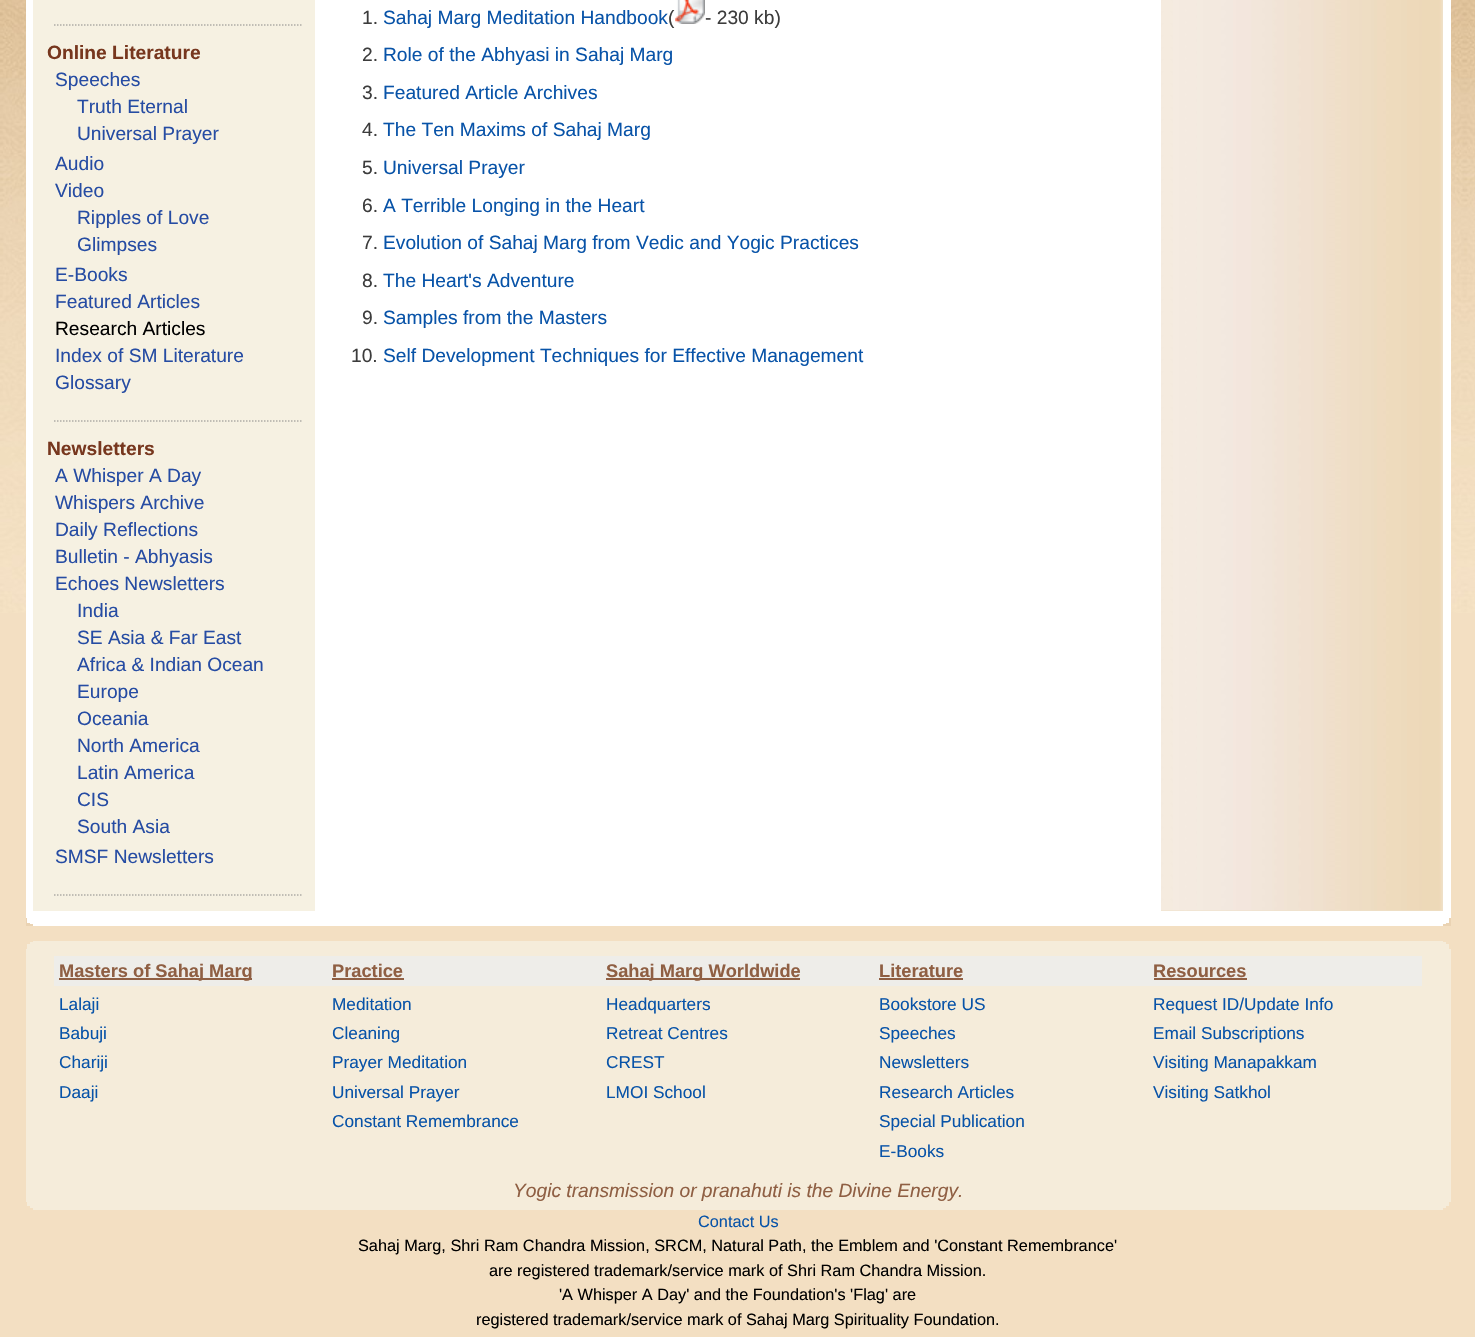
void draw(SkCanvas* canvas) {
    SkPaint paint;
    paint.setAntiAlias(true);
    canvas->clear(0xFFF3DFC2);
    canvas->drawImageRect(SkImages::DeferredFromEncodedData(SkData::MakeFromFileName("img1.png")), SkRect::MakeXYWH(0, 0, 1475, 613), SkSamplingOptions());
    paint.setColor(0xFFFFFFFF);
    canvas->drawRect(SkRect::MakeXYWH(26, 0, 1425, 918), paint);
    paint.setColor(0xFFF6F1E2);
    canvas->drawRect(SkRect::MakeXYWH(33, 0, 282, 911), paint);
    paint.setStyle(SkPaint::kStroke_Style);
    paint.setStrokeWidth(1.5f);
    paint.setColor(0xFFAEACA7);
    paint.setPathEffect(SkDashPathEffect::Make({{1.5f, 1.5f}}, 0));
    canvas->drawPath(SkPathBuilder().moveTo(54, 25).lineTo(301.5f, 25).detach(), paint);
    paint.setPathEffect(nullptr);
    SkFont font1(fontMgr->matchFamilyStyle("Liberation Sans", SkFontStyle::Bold()), 19.2f);
    font1.setSubpixel(true);
    paint.setStyle(SkPaint::kFill_Style);
    paint.setColor(0xFF77371E);
    canvas->drawString("Online Literature", 47, 59, font1, paint);
    paint.setStyle(SkPaint::kStroke_Style);
    paint.setColor(0xFFAEACA7);
    paint.setPathEffect(SkDashPathEffect::Make({{1.5f, 1.5f}}, 0));
    canvas->drawPath(SkPathBuilder().moveTo(54, 421).lineTo(301.5f, 421).detach(), paint);
    paint.setPathEffect(nullptr);
    SkFont font2(fontMgr->matchFamilyStyle("Liberation Sans", SkFontStyle::Normal()), 19.2f);
    font2.setSubpixel(true);
    paint.setStyle(SkPaint::kFill_Style);
    paint.setColor(0xFF264CA3);
    canvas->drawString("Speeches", 55, 86, font2, paint);
    canvas->drawString("Truth Eternal", 77, 113, font2, paint);
    canvas->drawString("Universal Prayer", 77, 140, font2, paint);
    canvas->drawString("Audio", 55, 170, font2, paint);
    canvas->drawString("Video", 55, 197, font2, paint);
    canvas->drawString("Ripples of Love", 77, 224, font2, paint);
    canvas->drawString("Glimpses", 77, 251, font2, paint);
    canvas->drawString("E-Books", 55, 281, font2, paint);
    canvas->drawString("Featured Articles", 55, 308, font2, paint);
    paint.setColor(0xFF000000);
    canvas->drawString("Research Articles", 55, 335, font2, paint);
    paint.setColor(0xFF264CA3);
    canvas->drawString("Index of SM Literature", 55, 362, font2, paint);
    canvas->drawString("Glossary", 55, 389, font2, paint);
    paint.setColor(0xFF77371E);
    canvas->drawString("Newsletters", 47, 455, font1, paint);
    paint.setStyle(SkPaint::kStroke_Style);
    paint.setColor(0xFFAEACA7);
    paint.setPathEffect(SkDashPathEffect::Make({{1.5f, 1.5f}}, 0));
    canvas->drawPath(SkPathBuilder().moveTo(54, 895).lineTo(301.5f, 895).detach(), paint);
    paint.setPathEffect(nullptr);
    paint.setStyle(SkPaint::kFill_Style);
    paint.setColor(0xFF264CA3);
    canvas->drawString("A Whisper A Day", 55, 482, font2, paint);
    canvas->drawString("Whispers Archive", 55, 509, font2, paint);
    canvas->drawString("Daily Reflections", 55, 536, font2, paint);
    canvas->drawString("Bulletin - Abhyasis", 55, 563, font2, paint);
    canvas->drawString("Echoes Newsletters", 55, 590, font2, paint);
    canvas->drawString("India", 77, 617, font2, paint);
    canvas->drawString("SE Asia & Far East", 77, 644, font2, paint);
    canvas->drawString("Africa & Indian Ocean", 77, 671, font2, paint);
    canvas->drawString("Europe", 77, 698, font2, paint);
    canvas->drawString("Oceania", 77, 725, font2, paint);
    canvas->drawString("North America", 77, 752, font2, paint);
    canvas->drawString("Latin America", 77, 779, font2, paint);
    canvas->drawString("CIS", 77, 806, font2, paint);
    canvas->drawString("South Asia", 77, 833, font2, paint);
    canvas->drawString("SMSF Newsletters", 55, 863, font2, paint);
    paint.setColor(0xFF3C3C3C);
    canvas->drawString("1.", 362, 24, font2, paint);
    paint.setColor(0xFF0853A8);
    canvas->drawString("Sahaj Marg Meditation Handbook", 383, 24, font2, paint);
    paint.setColor(0xFF3C3C3C);
    canvas->drawString("(", 668, 24, font2, paint);
    canvas->drawImageRect(SkImages::DeferredFromEncodedData(SkData::MakeFromFileName("img2.png")), SkRect::MakeXYWH(675, 0, 30, 24), SkSamplingOptions());
    canvas->drawString("- 230 kb)", 705, 24, font2, paint);
    canvas->drawString("2.", 362, 61, font2, paint);
    paint.setColor(0xFF0853A8);
    canvas->drawString("Role of the Abhyasi in Sahaj Marg", 383, 61, font2, paint);
    paint.setColor(0xFF3C3C3C);
    canvas->drawString("3.", 362, 99, font2, paint);
    paint.setColor(0xFF0853A8);
    canvas->drawString("Featured Article Archives", 383, 99, font2, paint);
    paint.setColor(0xFF3C3C3C);
    canvas->drawString("4.", 362, 136, font2, paint);
    paint.setColor(0xFF0853A8);
    canvas->drawString("The Ten Maxims of Sahaj Marg", 383, 136, font2, paint);
    paint.setColor(0xFF3C3C3C);
    canvas->drawString("5.", 362, 174, font2, paint);
    paint.setColor(0xFF0853A8);
    canvas->drawString("Universal Prayer", 383, 174, font2, paint);
    paint.setColor(0xFF3C3C3C);
    canvas->drawString("6.", 362, 212, font2, paint);
    paint.setColor(0xFF0853A8);
    canvas->drawString("A Terrible Longing in the Heart", 383, 212, font2, paint);
    paint.setColor(0xFF3C3C3C);
    canvas->drawString("7.", 362, 249, font2, paint);
    paint.setColor(0xFF0853A8);
    canvas->drawString("Evolution of Sahaj Marg from Vedic and Yogic Practices", 383, 249, font2, paint);
    paint.setColor(0xFF3C3C3C);
    canvas->drawString("8.", 362, 287, font2, paint);
    paint.setColor(0xFF0853A8);
    canvas->drawString("The Heart's Adventure", 383, 287, font2, paint);
    paint.setColor(0xFF3C3C3C);
    canvas->drawString("9.", 362, 324, font2, paint);
    paint.setColor(0xFF0853A8);
    canvas->drawString("Samples from the Masters", 383, 324, font2, paint);
    paint.setColor(0xFF3C3C3C);
    canvas->drawString("10.", 351, 362, font2, paint);
    paint.setColor(0xFF0853A8);
    canvas->drawString("Self Development Techniques for Effective Management", 383, 362, font2, paint);
    paint.setColor(0xFFEFE0C8);
    canvas->drawRect(SkRect::MakeXYWH(1161, 0, 282, 911), paint);
    canvas->drawImageRect(SkImages::DeferredFromEncodedData(SkData::MakeFromFileName("img3.png")), SkRect::MakeXYWH(1161, 0, 281, 911), SkSamplingOptions());
    paint.setColor(0xFFEAD3B3);
    canvas->drawRect(SkRect::MakeXYWH(26, 918, 1425, 8), paint);
    paint.setColor(0xFFFFFFFF);
    canvas->drawRect(SkRect::MakeXYWH(27, 918, 1422, 5), paint);
    canvas->drawRect(SkRect::MakeXYWH(30, 923, 1416, 1), paint);
    canvas->drawRect(SkRect::MakeXYWH(33, 924, 1410, 2), paint);
    paint.setColor(0xFFF5ECDA);
    canvas->drawRect(SkRect::MakeXYWH(26, 949, 1425, 253), paint);
    canvas->drawRect(SkRect::MakeXYWH(33, 941, 1410, 1), paint);
    canvas->drawRect(SkRect::MakeXYWH(30, 942, 1416, 2), paint);
    canvas->drawRect(SkRect::MakeXYWH(27, 944, 1422, 5), paint);
    paint.setColor(0xFFEEEDE9);
    canvas->drawRect(SkRect::MakeXYWH(54, 956, 1368, 30), paint);
    paint.setColor(0xFF8F5F43);
    canvas->drawRect(SkRect::MakeXYWH(59, 978, 193, 2), paint);
    SkFont font3(fontMgr->matchFamilyStyle("Liberation Sans", SkFontStyle::Bold()), 18.25f);
    font3.setSubpixel(true);
    canvas->drawString("Masters of Sahaj Marg", 59, 977, font3, paint);
    canvas->drawString("Practice", 332, 977, font3, paint);
    canvas->drawRect(SkRect::MakeXYWH(332, 978, 72, 2), paint);
    canvas->drawRect(SkRect::MakeXYWH(606, 978, 194, 2), paint);
    canvas->drawString("Sahaj Marg Worldwide", 606, 977, font3, paint);
    canvas->drawString("Literature", 879, 977, font3, paint);
    canvas->drawRect(SkRect::MakeXYWH(879, 978, 84, 2), paint);
    canvas->drawString("Resources", 1153, 977, font3, paint);
    canvas->drawRect(SkRect::MakeXYWH(1154, 978, 93, 2), paint);
    SkFont font4(fontMgr->matchFamilyStyle("Liberation Sans", SkFontStyle::Normal()), 17.25f);
    font4.setSubpixel(true);
    paint.setColor(0xFF0853A8);
    canvas->drawString("Lalaji", 59, 1010, font4, paint);
    canvas->drawString("Babuji", 59, 1039, font4, paint);
    canvas->drawString("Chariji", 59, 1068, font4, paint);
    canvas->drawString("Daaji", 59, 1098, font4, paint);
    canvas->drawString("Meditation", 332, 1010, font4, paint);
    canvas->drawString("Cleaning", 332, 1039, font4, paint);
    canvas->drawString("Prayer Meditation", 332, 1068, font4, paint);
    canvas->drawString("Universal Prayer", 332, 1098, font4, paint);
    canvas->drawString("Constant Remembrance", 332, 1127, font4, paint);
    canvas->drawString("Headquarters", 606, 1010, font4, paint);
    canvas->drawString("Retreat Centres", 606, 1039, font4, paint);
    canvas->drawString("CREST", 606, 1068, font4, paint);
    canvas->drawString("LMOI School", 606, 1098, font4, paint);
    canvas->drawString("Bookstore US", 879, 1010, font4, paint);
    canvas->drawString("Speeches", 879, 1039, font4, paint);
    canvas->drawString("Newsletters", 879, 1068, font4, paint);
    canvas->drawString("Research Articles", 879, 1098, font4, paint);
    canvas->drawString("Special Publication", 879, 1127, font4, paint);
    canvas->drawString("E-Books", 879, 1157, font4, paint);
    canvas->drawString("Request ID/Update Info", 1153, 1010, font4, paint);
    canvas->drawString("Email Subscriptions", 1153, 1039, font4, paint);
    canvas->drawString("Visiting Manapakkam", 1153, 1068, font4, paint);
    canvas->drawString("Visiting Satkhol", 1153, 1098, font4, paint);
    SkFont font5(fontMgr->matchFamilyStyle("Liberation Sans", SkFontStyle::Italic()), 19.2f);
    font5.setSubpixel(true);
    paint.setColor(0xFF8F5F43);
    canvas->drawString("Yogic transmission or pranahuti is the Divine Energy.", 513, 1197, font5, paint);
    paint.setColor(0xFFF5ECDA);
    canvas->drawRect(SkRect::MakeXYWH(27, 1202, 1422, 4), paint);
    canvas->drawRect(SkRect::MakeXYWH(30, 1206, 1416, 2), paint);
    canvas->drawRect(SkRect::MakeXYWH(33, 1208, 1410, 2), paint);
    SkFont font6(fontMgr->matchFamilyStyle("Liberation Sans", SkFontStyle::Normal()), 16.3f);
    font6.setSubpixel(true);
    paint.setColor(0xFF0853A8);
    canvas->drawString("Contact Us", 698, 1227, font6, paint);
    paint.setColor(0xFF000000);
    canvas->drawString("Sahaj Marg, Shri Ram Chandra Mission, SRCM, Natural Path, the Emblem and 'Constant Remembrance'", 358, 1251, font6, paint);
    canvas->drawString("are registered trademark/service mark of Shri Ram Chandra Mission.", 489, 1276, font6, paint);
    canvas->drawString("'A Whisper A Day' and the Foundation's 'Flag' are", 559, 1300, font6, paint);
    canvas->drawString("registered trademark/service mark of Sahaj Marg Spirituality Foundation.", 476, 1325, font6, paint);
}
